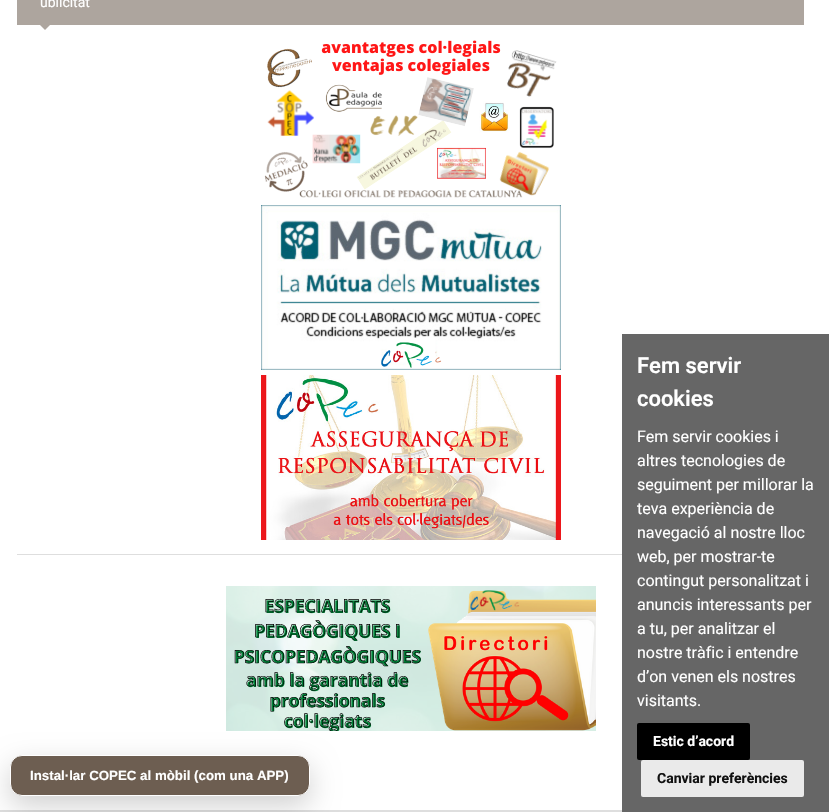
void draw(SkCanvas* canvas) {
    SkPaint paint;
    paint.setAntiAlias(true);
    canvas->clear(0xFFFFFFFF);
    paint.setColor(0xFFDEDEDE);
    canvas->drawRect(SkRect::MakeXYWH(17, 554, 605, 1), paint);
    paint.setColor(0xFFADA59E);
    canvas->drawRect(SkRect::MakeXYWH(17, 0, 787, 25), paint);
    SkFont font1(fontMgr->matchFamilyStyle("Roboto", SkFontStyle::Normal()), 14);
    font1.setSubpixel(true);
    paint.setColor(0xFFFFFFFF);
    canvas->drawString("ublicitat", 40, 7, font1, paint);
    paint.setColor(0xFFADA59E);
    canvas->drawPath(SkPathBuilder().moveTo(39, 24).lineTo(51, 24).lineTo(45, 30).close().detach(), paint);
    canvas->drawImageRect(SkImages::DeferredFromEncodedData(SkData::MakeFromFileName("img1.png")), SkRect::MakeXYWH(264, 40, 293, 158), SkSamplingOptions());
    canvas->drawImageRect(SkImages::DeferredFromEncodedData(SkData::MakeFromFileName("img2.png")), SkRect::MakeXYWH(261, 205, 300, 165), SkSamplingOptions());
    canvas->drawImageRect(SkImages::DeferredFromEncodedData(SkData::MakeFromFileName("img3.png")), SkRect::MakeXYWH(261, 375, 300, 165), SkSamplingOptions());
    canvas->drawImageRect(SkImages::DeferredFromEncodedData(SkData::MakeFromFileName("img4.png")), SkRect::MakeXYWH(226, 586, 370, 145), SkSamplingOptions());
    paint.setColor(0xFFDEDEDE);
    canvas->drawRect(SkRect::MakeXYWH(0, 810, 622, 2), paint);
    paint.setColor(0x2E000000);
    paint.setMaskFilter(SkMaskFilter::MakeBlur(kNormal_SkBlurStyle, 14));
    canvas->drawRoundRect(SkRect::MakeXYWH(10, 765, 300, 41), 12, 12, paint);
    paint.setMaskFilter(nullptr);
    paint.setColor(0xFF6D5E51);
    canvas->drawRoundRect(SkRect::MakeXYWH(10.5f, 755.5f, 299, 40), 11.5f, 11.5f, paint);
    paint.setStyle(SkPaint::kStroke_Style);
    paint.setStrokeWidth(1);
    paint.setColor(0xFFFFFFFF);
    canvas->drawRoundRect(SkRect::MakeXYWH(10.5f, 755.5f, 299, 40), 11.5f, 11.5f, paint);
    SkFont font2(fontMgr->matchFamilyStyle("Liberation Sans", SkFontStyle::Bold()), 13.3f);
    font2.setSubpixel(true);
    paint.setStyle(SkPaint::kFill_Style);
    canvas->drawString("Instal·lar COPEC al mòbil (com una APP)", 30, 780, font2, paint);
    paint.setColor(0xFF666666);
    canvas->drawRect(SkRect::MakeXYWH(622, 334, 207, 478), paint);
    SkFont font3(fontMgr->matchFamilyStyle("Roboto", SkFontStyle(600, SkFontStyle::kNormal_Width, SkFontStyle::kUpright_Slant)), 22);
    font3.setSubpixel(true);
    paint.setColor(0xFFFFFFFF);
    canvas->drawString("Fem servir", 637, 373, font3, paint);
    canvas->drawString("cookies", 637, 406, font3, paint);
    SkFont font4(fontMgr->matchFamilyStyle("Roboto", SkFontStyle::Normal()), 16);
    font4.setSubpixel(true);
    canvas->drawString("Fem servir cookies i", 637, 442, font4, paint);
    canvas->drawString("altres tecnologies de", 637, 466, font4, paint);
    canvas->drawString("seguiment per millorar la", 637, 490, font4, paint);
    canvas->drawString("teva experiència de", 637, 514, font4, paint);
    canvas->drawString("navegació al nostre lloc", 637, 538, font4, paint);
    canvas->drawString("web, per mostrar-te", 637, 562, font4, paint);
    canvas->drawString("contingut personalitzat i", 637, 586, font4, paint);
    canvas->drawString("anuncis interessants per", 637, 610, font4, paint);
    canvas->drawString("a tu, per analitzar el", 637, 634, font4, paint);
    canvas->drawString("nostre tràfic i entendre", 637, 658, font4, paint);
    canvas->drawString("d’on venen els nostres", 637, 682, font4, paint);
    canvas->drawString("visitants.", 637, 706, font4, paint);
    paint.setColor(0xFF000000);
    canvas->drawRoundRect(SkRect::MakeXYWH(637, 723, 113, 37), 2, 2, paint);
    SkFont font5(fontMgr->matchFamilyStyle("Roboto", SkFontStyle::Bold()), 14);
    font5.setSubpixel(true);
    paint.setColor(0xFFFFFFFF);
    canvas->drawString("Estic d’acord", 653, 746, font5, paint);
    paint.setColor(0xFFEAEAEA);
    canvas->drawRoundRect(SkRect::MakeXYWH(641, 760, 163, 37), 2, 2, paint);
    paint.setColor(0xFF111111);
    canvas->drawString("Canviar preferències", 657, 783, font5, paint);
}
